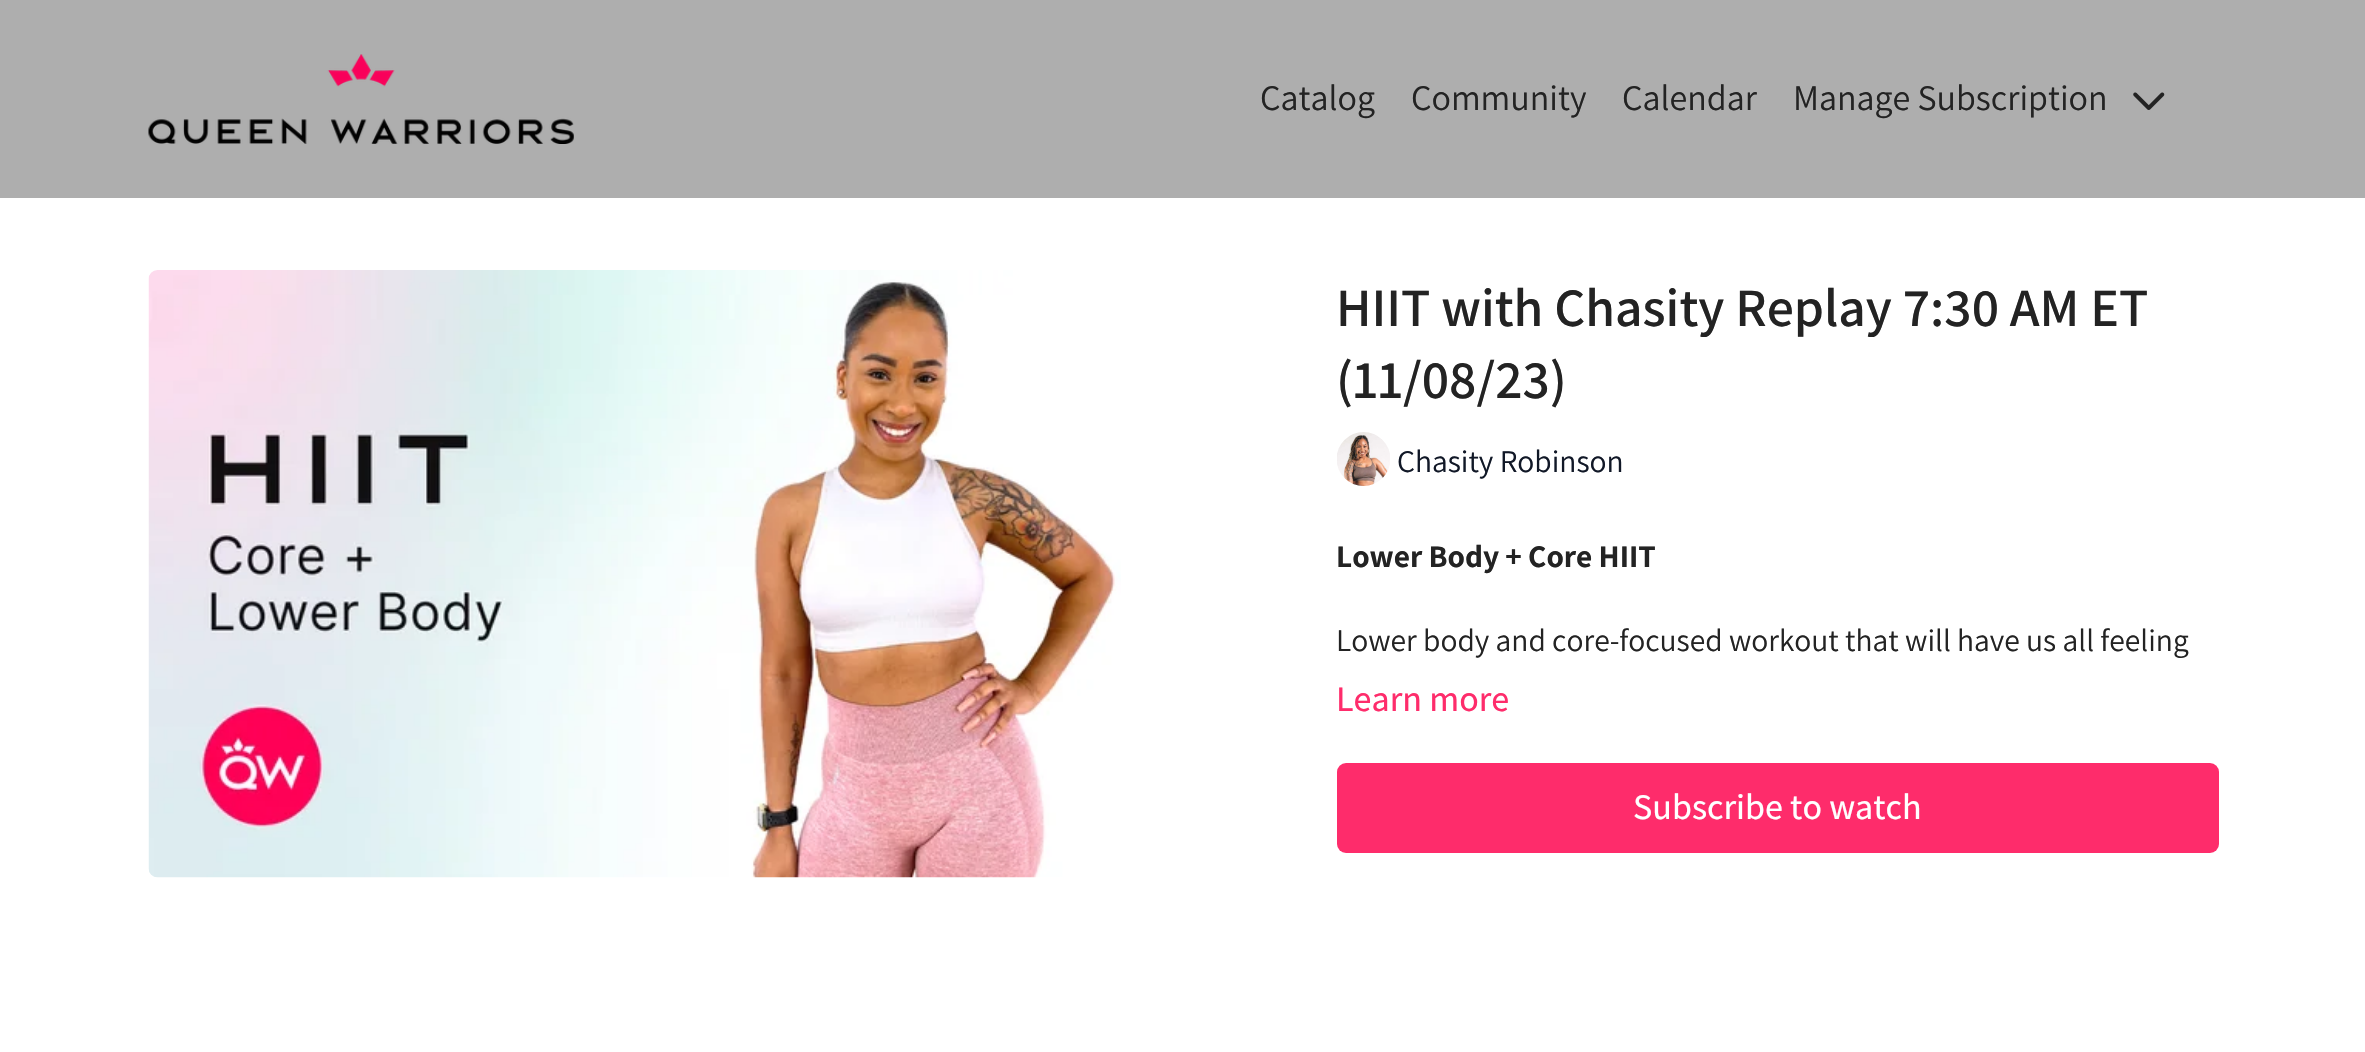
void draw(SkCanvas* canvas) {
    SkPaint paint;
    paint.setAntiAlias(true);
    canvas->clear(0xFFFFFFFF);
    paint.setColor(0xFFAEAEAE);
    canvas->drawRect(SkRect::MakeXYWH(0, 0, 2365, 198), paint);
    canvas->drawImageRect(SkImages::DeferredFromEncodedData(SkData::MakeFromFileName("img1.png")), SkRect::MakeXYWH(148, 54, 426, 90), SkSamplingOptions());
    SkFont font1(fontMgr->matchFamilyStyle("Assistant", SkFontStyle::Normal()), 36);
    font1.setSubpixel(true);
    paint.setColor(0xFF232323);
    canvas->drawString("Catalog", 1260, 110, font1, paint);
    canvas->drawString("Community", 1411, 110, font1, paint);
    canvas->drawString("Calendar", 1622, 110, font1, paint);
    canvas->drawString("Manage Subscription", 1793, 110, font1, paint);
    canvas->drawImageRect(SkImages::DeferredFromEncodedData(SkData::MakeFromFileName("img2.png")), SkRect::MakeXYWH(2133, 92, 32, 18), SkSamplingOptions());
    canvas->drawImageRect(SkImages::DeferredFromEncodedData(SkData::MakeFromFileName("img3.png")), SkRect::MakeXYWH(148, 270, 973, 608), SkSamplingOptions());
    SkFont font2(fontMgr->matchFamilyStyle("Assistant", SkFontStyle(600, SkFontStyle::kNormal_Width, SkFontStyle::kUpright_Slant)), 54);
    font2.setSubpixel(true);
    canvas->drawString("HIIT with Chasity Replay 7:30 AM ET", 1336, 326, font2, paint);
    canvas->drawString("(11/08/23)", 1336, 398, font2, paint);
    canvas->drawImageRect(SkImages::DeferredFromEncodedData(SkData::MakeFromFileName("img4.png")), SkRect::MakeXYWH(1337, 432, 53, 54), SkSamplingOptions());
    SkFont font3(fontMgr->matchFamilyStyle("Assistant", SkFontStyle::Normal()), 31.5f);
    font3.setSubpixel(true);
    paint.setColor(0xFF111827);
    canvas->drawString("Chasity Robinson", 1397, 472, font3, paint);
    SkFont font4(fontMgr->matchFamilyStyle("Assistant", SkFontStyle::Bold()), 31.5f);
    font4.setSubpixel(true);
    paint.setColor(0xFF232323);
    canvas->drawString("Lower Body + Core HIIT", 1336, 567, font4, paint);
    canvas->drawString("Lower body and core-focused workout that will have us all feeling", 1336, 651, font3, paint);
    SkFont font5(fontMgr->matchFamilyStyle("Assistant", SkFontStyle(500, SkFontStyle::kNormal_Width, SkFontStyle::kUpright_Slant)), 36);
    font5.setSubpixel(true);
    paint.setColor(0xFFFE2C6B);
    canvas->drawString("Learn more", 1336, 711, font5, paint);
    canvas->drawRoundRect(SkRect::MakeXYWH(1337, 763, 882, 90), 9, 9, paint);
    paint.setColor(0xFFFFFFFF);
    canvas->drawString("Subscribe to watch", 1633, 819, font5, paint);
}
